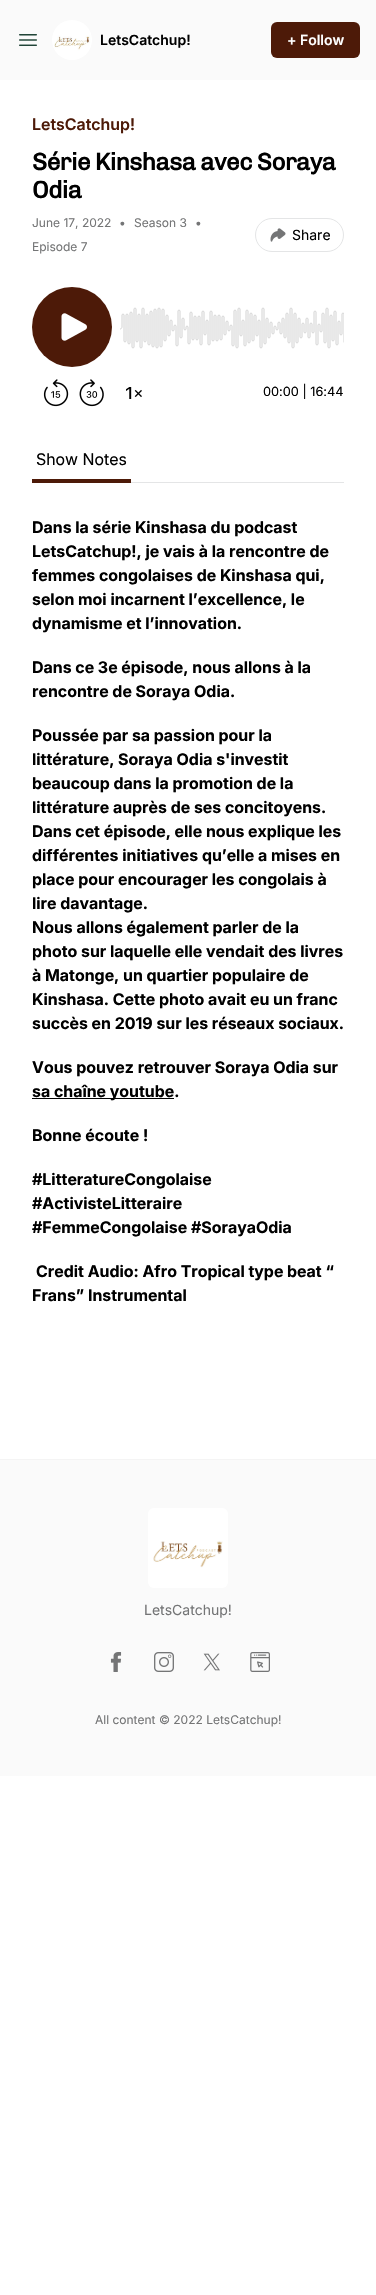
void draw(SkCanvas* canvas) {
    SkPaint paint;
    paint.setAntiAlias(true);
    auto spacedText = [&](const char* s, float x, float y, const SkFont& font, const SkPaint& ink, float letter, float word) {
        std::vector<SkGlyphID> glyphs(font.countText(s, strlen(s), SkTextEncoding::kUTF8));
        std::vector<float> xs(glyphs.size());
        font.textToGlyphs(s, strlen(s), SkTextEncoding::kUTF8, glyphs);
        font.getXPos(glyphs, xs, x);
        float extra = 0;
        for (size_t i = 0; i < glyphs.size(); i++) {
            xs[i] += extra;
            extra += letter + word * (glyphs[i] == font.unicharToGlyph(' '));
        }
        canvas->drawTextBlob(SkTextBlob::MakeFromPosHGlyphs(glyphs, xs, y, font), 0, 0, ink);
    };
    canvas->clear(0xFFFFFFFF);
    paint.setColor(0xFFFAFAFA);
    canvas->drawRect(SkRect::MakeXYWH(0, 0, 376, 80), paint);
    canvas->drawImageRect(SkImages::DeferredFromEncodedData(SkData::MakeFromFileName("img1.png")), SkRect::MakeXYWH(19, 34, 18, 12), SkSamplingOptions());
    canvas->drawImageRect(SkImages::DeferredFromEncodedData(SkData::MakeFromFileName("img2.png")), SkRect::MakeXYWH(52, 20, 40, 40), SkSamplingOptions());
    SkFont font1(fontMgr->matchFamilyStyle("Inter", SkFontStyle(600, SkFontStyle::kNormal_Width, SkFontStyle::kUpright_Slant)), 14);
    font1.setSubpixel(true);
    paint.setColor(0xFF000000);
    canvas->drawString("LetsCatchup!", 100, 45, font1, paint);
    paint.setColor(0xFF4D1A08);
    canvas->drawRoundRect(SkRect::MakeXYWH(271, 22, 89, 36), 6, 6, paint);
    paint.setColor(0xFFFFFFFF);
    canvas->drawString("+ Follow", 287, 45, font1, paint);
    SkFont font2(fontMgr->matchFamilyStyle("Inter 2", SkFontStyle(600, SkFontStyle::kNormal_Width, SkFontStyle::kUpright_Slant)), 16);
    font2.setSubpixel(true);
    paint.setColor(0xFF4D1A08);
    canvas->drawString("LetsCatchup!", 32, 130, font2, paint);
    SkFont font3(fontMgr->matchFamilyStyle("Chivo", SkFontStyle::Bold()), 24);
    font3.setSubpixel(true);
    paint.setColor(0xFF000000);
    spacedText("Série Kinshasa avec Soraya", 32, 170, font3, paint, -0.6f, 0);
    spacedText("Odia", 32, 198, font3, paint, -0.6f, 0);
    SkFont font4(fontMgr->matchFamilyStyle("Inter", SkFontStyle::Normal()), 12);
    font4.setSubpixel(true);
    paint.setColor(0xFF747576);
    canvas->drawString("June 17, 2022", 32, 227, font4, paint);
    canvas->drawString("•", 119, 227, font4, paint);
    canvas->drawString("Season 3", 134, 227, font4, paint);
    canvas->drawString("•", 195, 227, font4, paint);
    canvas->drawString("Episode 7", 32, 251, font4, paint);
    paint.setStyle(SkPaint::kStroke_Style);
    paint.setStrokeWidth(1);
    paint.setColor(0xFFE4E5E6);
    canvas->drawRoundRect(SkRect::MakeXYWH(255.5f, 218.5f, 88, 33), 16.5f, 16.5f, paint);
    canvas->drawImageRect(SkImages::DeferredFromEncodedData(SkData::MakeFromFileName("img3.png")), SkRect::MakeXYWH(270, 228, 16, 14), SkSamplingOptions());
    SkFont font5(fontMgr->matchFamilyStyle("Inter", SkFontStyle::Normal()), 14);
    font5.setSubpixel(true);
    paint.setStyle(SkPaint::kFill_Style);
    paint.setColor(0xFF000000);
    canvas->drawString("Share", 292, 240, font5, paint);
    canvas->drawImageRect(SkImages::DeferredFromEncodedData(SkData::MakeFromFileName("img4.png")), SkRect::MakeXYWH(43, 379, 26, 28), SkSamplingOptions());
    canvas->drawImageRect(SkImages::DeferredFromEncodedData(SkData::MakeFromFileName("img5.png")), SkRect::MakeXYWH(79, 379, 25, 28), SkSamplingOptions());
    canvas->drawImageRect(SkImages::DeferredFromEncodedData(SkData::MakeFromFileName("img6.png")), SkRect::MakeXYWH(126, 387, 16, 12), SkSamplingOptions());
    paint.setColor(0xFF4D1A08);
    canvas->drawCircle(72, 327, 40, paint);
    canvas->drawImageRect(SkImages::DeferredFromEncodedData(SkData::MakeFromFileName("img7.png")), SkRect::MakeXYWH(61, 313, 26, 28), SkSamplingOptions());
    canvas->drawImageRect(SkImages::DeferredFromEncodedData(SkData::MakeFromFileName("img8.png")), SkRect::MakeXYWH(120, 307, 224, 42), SkSamplingOptions());
    SkFont font6(fontMgr->matchFamilyStyle("Inter", SkFontStyle::Normal()), 12.75f);
    font6.setSubpixel(true);
    paint.setColor(0xFF000000);
    canvas->drawString("00:00 | 16:44", 263, 396, font6, paint);
    paint.setColor(0xFFE4E5E6);
    canvas->drawRect(SkRect::MakeXYWH(131, 482, 213, 1), paint);
    paint.setColor(0xFF4D1A08);
    canvas->drawRect(SkRect::MakeXYWH(32, 479, 99, 4), paint);
    SkFont font7(fontMgr->matchFamilyStyle("Inter 2", SkFontStyle::Normal()), 16);
    font7.setSubpixel(true);
    paint.setColor(0xFF000000);
    canvas->drawString("Show Notes", 36, 465, font7, paint);
    SkFont font8(fontMgr->matchFamilyStyle("Inter", SkFontStyle::Bold()), 16);
    font8.setSubpixel(true);
    canvas->drawString("Dans la série Kinshasa du podcast", 32, 533, font8, paint);
    canvas->drawString("LetsCatchup!, je vais à la rencontre de", 32, 557, font8, paint);
    canvas->drawString("femmes congolaises de Kinshasa qui,", 32, 581, font8, paint);
    canvas->drawString("selon moi incarnent l’excellence, le", 32, 605, font8, paint);
    canvas->drawString("dynamisme et l’innovation.", 32, 629, font8, paint);
    canvas->drawString("Dans ce 3e épisode, nous allons à la", 32, 673, font8, paint);
    canvas->drawString("rencontre de Soraya Odia.", 32, 697, font8, paint);
    canvas->drawString("Poussée par sa passion pour la", 32, 741, font8, paint);
    canvas->drawString("littérature, Soraya Odia s'investit", 32, 765, font8, paint);
    canvas->drawString("beaucoup dans la promotion de la", 32, 789, font8, paint);
    canvas->drawString("littérature auprès de ses concitoyens.", 32, 813, font8, paint);
    canvas->drawString("Dans cet épisode, elle nous explique les", 32, 837, font8, paint);
    canvas->drawString("différentes initiatives qu’elle a mises en", 32, 861, font8, paint);
    canvas->drawString("place pour encourager les congolais à", 32, 885, font8, paint);
    canvas->drawString("lire davantage.", 32, 909, font8, paint);
    canvas->drawString("Nous allons également parler de la", 32, 933, font8, paint);
    canvas->drawString("photo sur laquelle elle vendait des livres", 32, 957, font8, paint);
    canvas->drawString("à Matonge, un quartier populaire de", 32, 981, font8, paint);
    canvas->drawString("Kinshasa. Cette photo avait eu un franc", 32, 1005, font8, paint);
    canvas->drawString("succès en 2019 sur les réseaux sociaux.", 32, 1029, font8, paint);
    canvas->drawString("Vous pouvez retrouver Soraya Odia sur", 32, 1073, font8, paint);
    canvas->drawRect(SkRect::MakeXYWH(32, 1098, 142, 1), paint);
    canvas->drawString("sa chaîne youtube.", 32, 1097, font8, paint);
    canvas->drawString("Bonne écoute !", 32, 1141, font8, paint);
    canvas->drawString("#LitteratureCongolaise", 32, 1185, font8, paint);
    canvas->drawString("#ActivisteLitteraire", 32, 1209, font8, paint);
    canvas->drawString("#FemmeCongolaise #SorayaOdia", 32, 1233, font8, paint);
    canvas->drawString("Credit Audio: Afro Tropical type beat “", 36, 1277, font8, paint);
    canvas->drawString("Frans” Instrumental", 32, 1301, font8, paint);
    paint.setColor(0xFFFAFAFA);
    canvas->drawRect(SkRect::MakeXYWH(0, 1460, 376, 316), paint);
    paint.setColor(0xFFF4F4F4);
    canvas->drawRect(SkRect::MakeXYWH(0, 1459, 376, 1), paint);
    canvas->drawImageRect(SkImages::DeferredFromEncodedData(SkData::MakeFromFileName("img9.png")), SkRect::MakeXYWH(148, 1508, 80, 80), SkSamplingOptions());
    paint.setColor(0xFF747576);
    canvas->drawString("LetsCatchup!", 144, 1615, font5, paint);
    canvas->drawImageRect(SkImages::DeferredFromEncodedData(SkData::MakeFromFileName("img10.png")), SkRect::MakeXYWH(110, 1652, 12, 20), SkSamplingOptions());
    canvas->drawImageRect(SkImages::DeferredFromEncodedData(SkData::MakeFromFileName("img11.png")), SkRect::MakeXYWH(154, 1652, 20, 20), SkSamplingOptions());
    canvas->drawImageRect(SkImages::DeferredFromEncodedData(SkData::MakeFromFileName("img12.png")), SkRect::MakeXYWH(203, 1653, 17, 18), SkSamplingOptions());
    canvas->drawImageRect(SkImages::DeferredFromEncodedData(SkData::MakeFromFileName("img13.png")), SkRect::MakeXYWH(250, 1652, 20, 20), SkSamplingOptions());
    canvas->drawString("All content © 2022 LetsCatchup!", 95, 1724, font4, paint);
}
